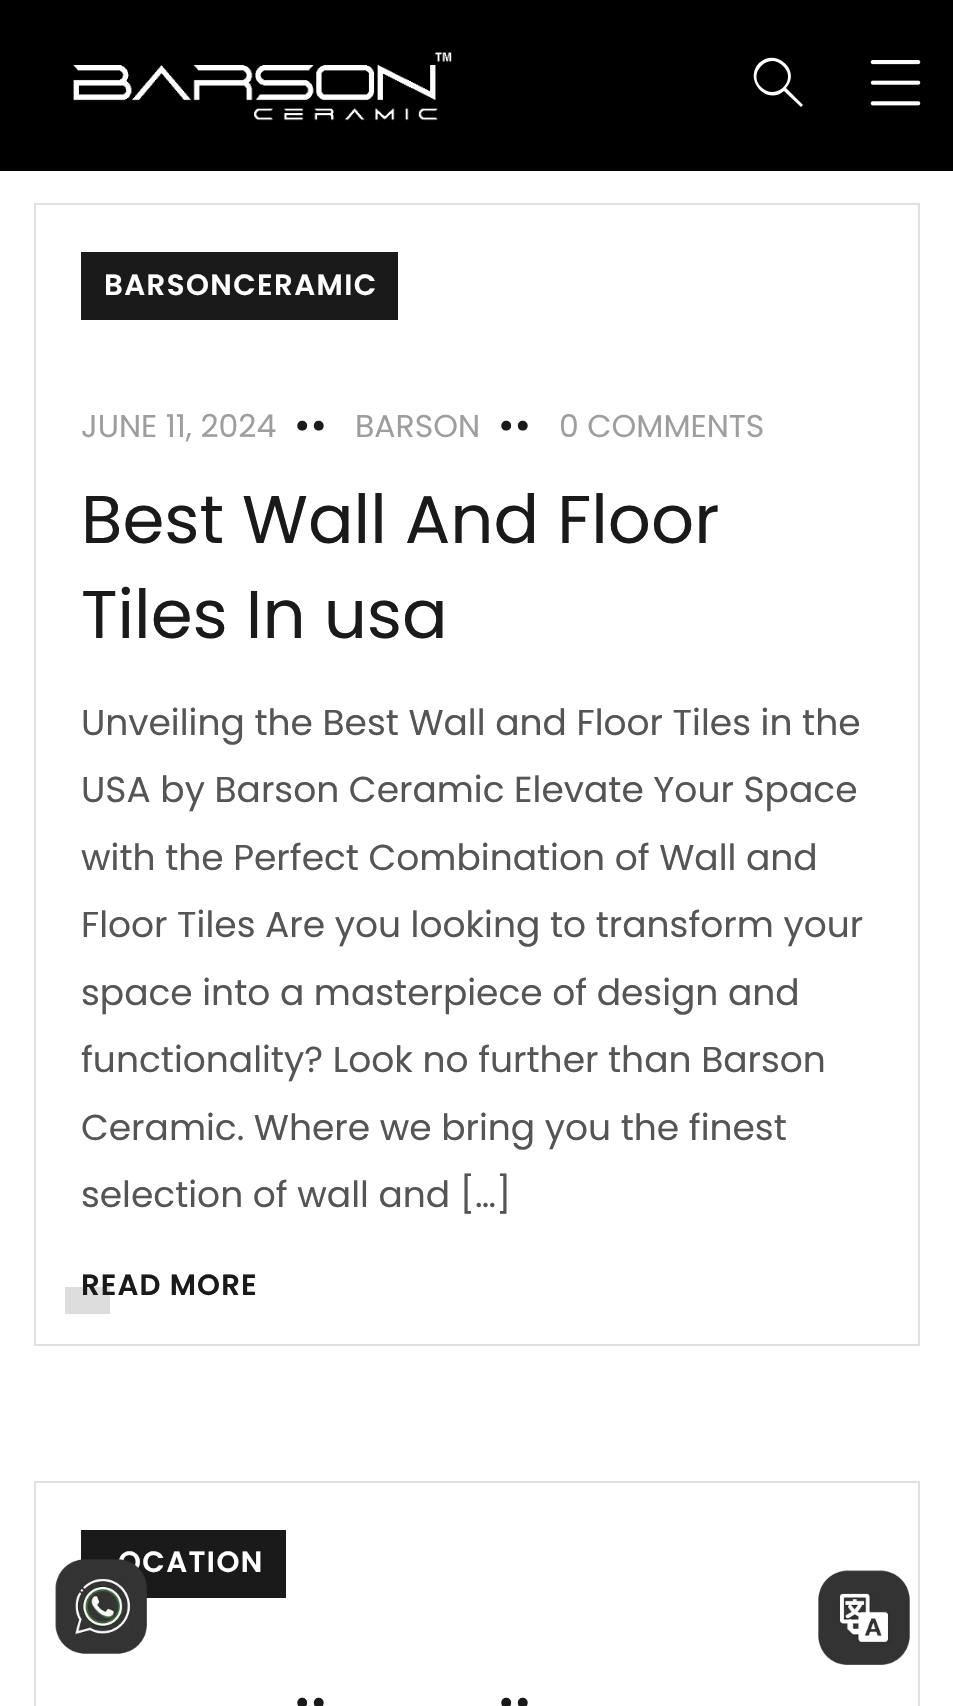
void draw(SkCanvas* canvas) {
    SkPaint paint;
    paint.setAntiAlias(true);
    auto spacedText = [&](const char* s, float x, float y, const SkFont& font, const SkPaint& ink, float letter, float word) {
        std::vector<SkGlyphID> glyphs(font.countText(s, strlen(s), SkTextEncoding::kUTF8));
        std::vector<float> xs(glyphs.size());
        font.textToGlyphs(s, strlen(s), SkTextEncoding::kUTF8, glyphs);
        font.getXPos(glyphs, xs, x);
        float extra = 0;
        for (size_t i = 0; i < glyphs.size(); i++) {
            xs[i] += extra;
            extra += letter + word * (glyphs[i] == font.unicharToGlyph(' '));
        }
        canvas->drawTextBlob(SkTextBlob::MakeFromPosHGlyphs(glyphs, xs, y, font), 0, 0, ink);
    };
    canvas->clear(0xFFFFFFFF);
    paint.setColor(0xFF000000);
    canvas->drawRect(SkRect::MakeXYWH(0, 0, 953, 171), paint);
    canvas->drawImageRect(SkImages::DeferredFromEncodedData(SkData::MakeFromFileName("img1.png")), SkRect::MakeXYWH(73, 52, 379, 69), SkSamplingOptions());
    paint.setColor(0xFFFFFFFF);
    canvas->drawPath(SkPathBuilder().moveTo(803, 105).lineTo(801, 107).lineTo(784, 91).cubicTo(767, 106, 743, 80, 759, 63).cubicTo(776, 47, 802, 71, 786, 88).close().moveTo(761, 87).cubicTo(776, 102, 798, 80, 783, 66).cubicTo(769, 51, 747, 73, 761, 87).close().detach(), paint);
    canvas->drawImageRect(SkImages::DeferredFromEncodedData(SkData::MakeFromFileName("img2.png")), SkRect::MakeXYWH(870, 60, 51, 46), SkSamplingOptions());
    paint.setStyle(SkPaint::kStroke_Style);
    paint.setStrokeWidth(2);
    paint.setColor(0xFFE0E0E0);
    canvas->drawRect(SkRect::MakeXYWH(35, 204, 884, 1141), paint);
    paint.setStyle(SkPaint::kFill_Style);
    paint.setColor(0xFF1A1A1A);
    canvas->drawRect(SkRect::MakeXYWH(81, 252, 317, 68), paint);
    SkFont font1(fontMgr->matchFamilyStyle("Poppins", SkFontStyle(600, SkFontStyle::kNormal_Width, SkFontStyle::kUpright_Slant)), 29.25f);
    font1.setSubpixel(true);
    paint.setColor(0xFFFFFFFF);
    spacedText("BARSONCERAMIC", 104, 295, font1, paint, 1.4f, 0);
    SkFont font2(fontMgr->matchFamilyStyle("Poppins", SkFontStyle::Normal()), 31.5f);
    font2.setSubpixel(true);
    paint.setColor(0xFF9F9E9E);
    canvas->drawString("JUNE 11, 2024", 81, 437, font2, paint);
    SkFont font3(fontMgr->matchFamilyStyle("Poppins", SkFontStyle::Normal()), 40);
    font3.setSubpixel(true);
    paint.setColor(0xFF1A1A1A);
    canvas->drawString("••", 294, 439, font3, paint);
    paint.setColor(0xFF9F9E9E);
    canvas->drawString("BARSON", 355, 437, font2, paint);
    paint.setColor(0xFF1A1A1A);
    canvas->drawString("••", 498, 439, font3, paint);
    paint.setColor(0xFF9F9E9E);
    canvas->drawString("0 COMMENTS", 559, 437, font2, paint);
    SkFont font4(fontMgr->matchFamilyStyle("Poppins", SkFontStyle::Normal()), 67.5f);
    font4.setSubpixel(true);
    paint.setColor(0xFF1A1A1A);
    canvas->drawString("Best Wall And Floor", 81, 543, font4, paint);
    canvas->drawString("Tiles In usa", 81, 638, font4, paint);
    SkFont font5(fontMgr->matchFamilyStyle("Poppins", SkFontStyle::Normal()), 36);
    font5.setSubpixel(true);
    paint.setColor(0xFF555555);
    canvas->drawString("Unveiling the Best Wall and Floor Tiles in the", 81, 735, font5, paint);
    canvas->drawString("USA by Barson Ceramic Elevate Your Space", 81, 802, font5, paint);
    canvas->drawString("with the Perfect Combination of Wall and", 81, 870, font5, paint);
    canvas->drawString("Floor Tiles Are you looking to transform your", 81, 937, font5, paint);
    canvas->drawString("space into a masterpiece of design and", 81, 1005, font5, paint);
    canvas->drawString("functionality? Look no further than Barson", 81, 1072, font5, paint);
    canvas->drawString("Ceramic. Where we bring you the finest", 81, 1140, font5, paint);
    canvas->drawString("selection of wall and […]", 81, 1207, font5, paint);
    paint.setColor(0xFFDDDDDD);
    canvas->drawRect(SkRect::MakeXYWH(65, 1287, 45, 27), paint);
    paint.setColor(0xFF1A1A1A);
    spacedText("READ MORE", 81, 1295, font1, paint, 1.1f, 0);
    paint.setStyle(SkPaint::kStroke_Style);
    paint.setColor(0xFFE0E0E0);
    canvas->drawRect(SkRect::MakeXYWH(35, 1482, 884, 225), paint);
    paint.setStyle(SkPaint::kFill_Style);
    paint.setColor(0xFF1A1A1A);
    canvas->drawRect(SkRect::MakeXYWH(81, 1530, 205, 68), paint);
    paint.setColor(0xFFFFFFFF);
    spacedText("OCATION", 118, 1572, font1, paint, 1.4f, 0);
    paint.setColor(0xFF1A1A1A);
    canvas->drawString("••", 294, 1716, font3, paint);
    canvas->drawString("••", 498, 1716, font3, paint);
    canvas->drawImageRect(SkImages::DeferredFromEncodedData(SkData::MakeFromFileName("img3.png")), SkRect::MakeXYWH(55, 1559, 92, 95), SkSamplingOptions());
    canvas->drawImageRect(SkImages::DeferredFromEncodedData(SkData::MakeFromFileName("img4.png")), SkRect::MakeXYWH(818, 1570, 92, 95), SkSamplingOptions());
}
